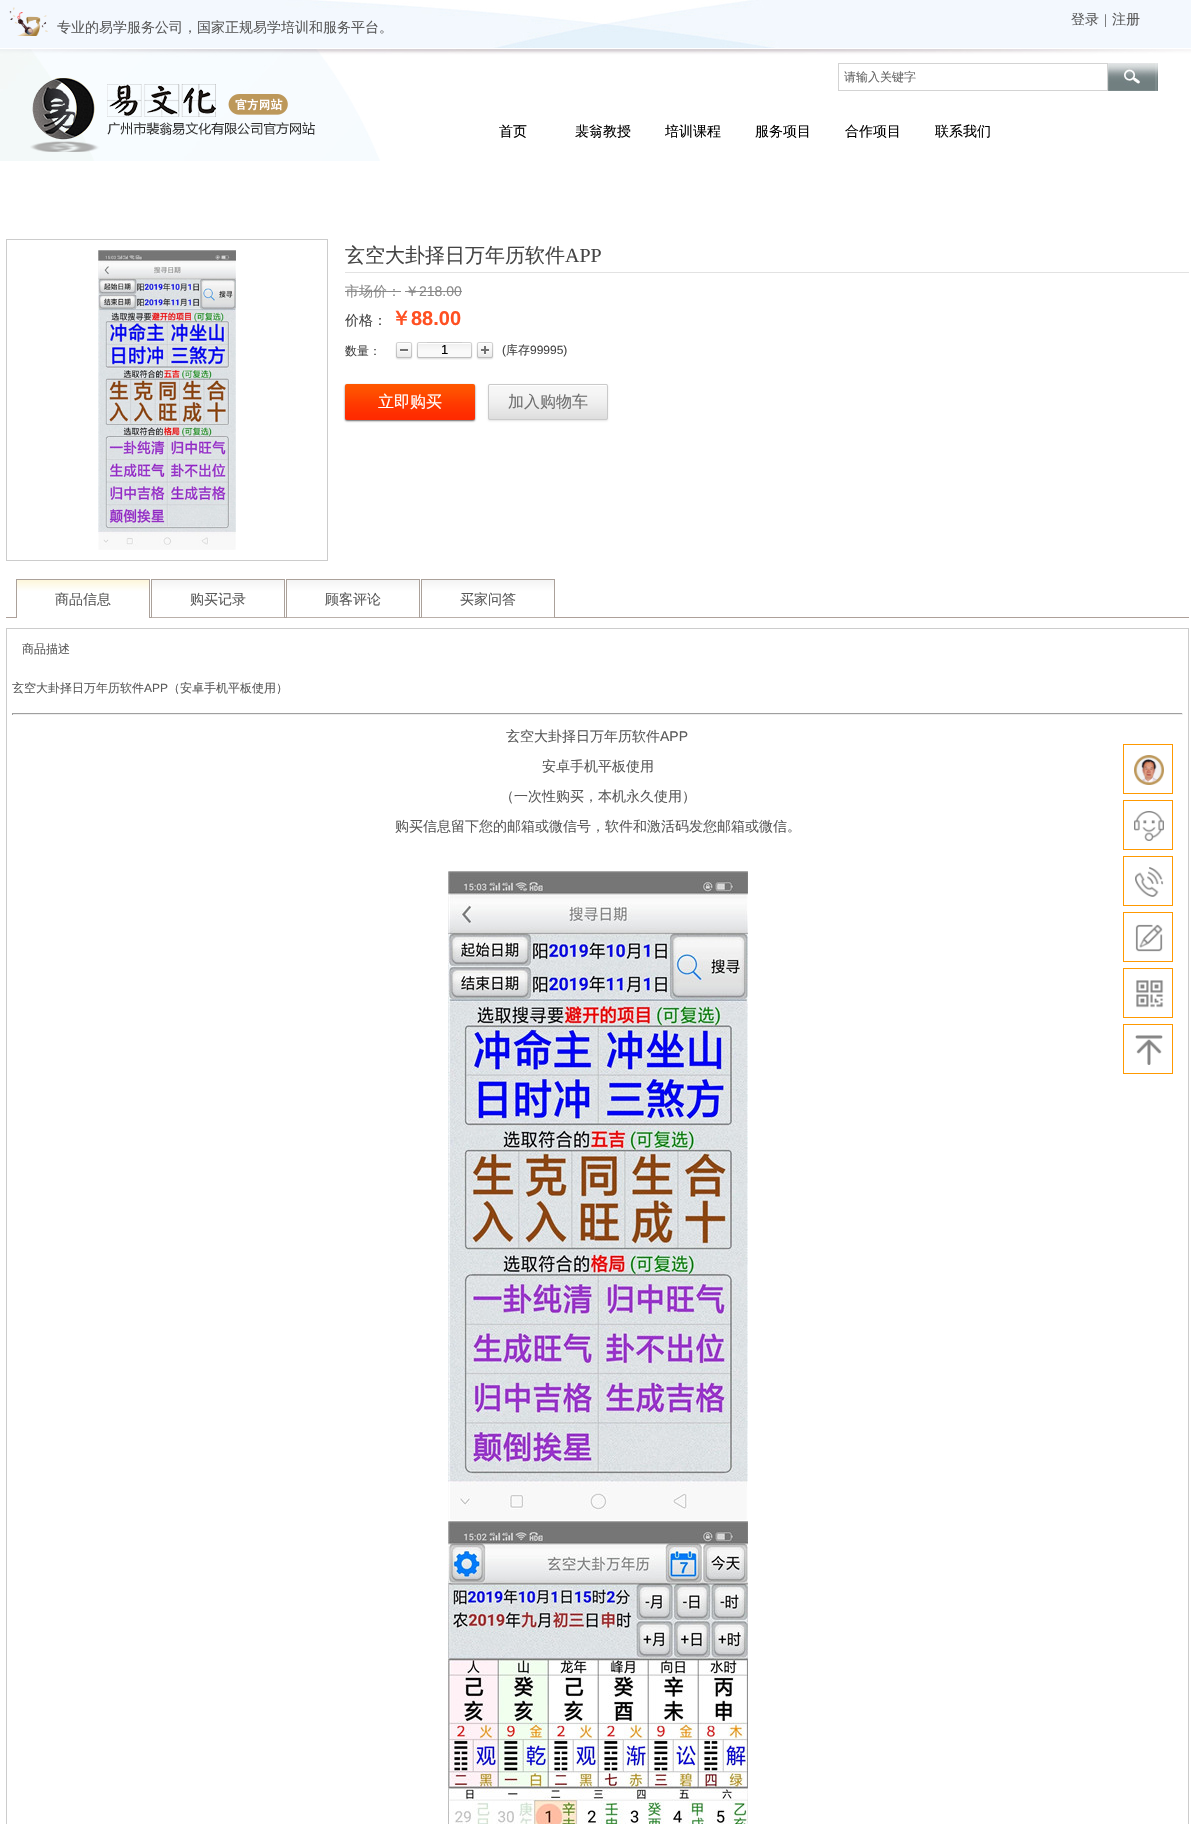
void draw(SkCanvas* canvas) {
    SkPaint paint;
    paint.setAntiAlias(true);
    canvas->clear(0xFFFFFFFF);
    canvas->drawImageRect(SkImages::DeferredFromEncodedData(SkData::MakeFromFileName("img1.png")), SkRect::MakeXYWH(0, 0, 1191, 48), SkSamplingOptions());
    canvas->drawImageRect(SkImages::DeferredFromEncodedData(SkData::MakeFromFileName("img2.png")), SkRect::MakeXYWH(9, 7, 39, 29), SkSamplingOptions());
    SkFont font1(fontMgr->matchFamilyStyle("WenQuanYi Zen Hei", SkFontStyle(500, SkFontStyle::kNormal_Width, SkFontStyle::kUpright_Slant)), 14);
    font1.setSubpixel(true);
    paint.setColor(0xFF5A5A5A);
    canvas->drawString("专业的易学服务公司，国家正规易学培训和服务平台。", 57, 32, font1, paint);
    canvas->drawString("登录", 1071, 24, font1, paint);
    SkFont font2(fontMgr->matchFamilyStyle("Liberation Serif", SkFontStyle::Normal()), 14);
    font2.setSubpixel(true);
    canvas->drawString("|", 1104, 24, font2, paint);
    canvas->drawString("注册", 1112, 24, font1, paint);
    canvas->drawImageRect(SkImages::DeferredFromEncodedData(SkData::MakeFromFileName("img3.png")), SkRect::MakeXYWH(0, 49, 1191, 112), SkSamplingOptions());
    paint.setStyle(SkPaint::kStroke_Style);
    paint.setStrokeWidth(1);
    paint.setColor(0xFFD3D3D3);
    canvas->drawRect(SkRect::MakeXYWH(838.5f, 63.5f, 269, 27), paint);
    SkFont font3(fontMgr->matchFamilyStyle("WenQuanYi Zen Hei", SkFontStyle(500, SkFontStyle::kNormal_Width, SkFontStyle::kUpright_Slant)), 12);
    font3.setSubpixel(true);
    paint.setStyle(SkPaint::kFill_Style);
    paint.setColor(0xFF666666);
    canvas->drawString("请输入关键字", 844, 81, font3, paint);
    canvas->drawImageRect(SkImages::DeferredFromEncodedData(SkData::MakeFromFileName("img4.png")), SkRect::MakeXYWH(1108, 63, 50, 28), SkSamplingOptions());
    canvas->drawImageRect(SkImages::DeferredFromEncodedData(SkData::MakeFromFileName("img5.png")), SkRect::MakeXYWH(30, 78, 285, 74), SkSamplingOptions());
    paint.setColor(0xFF000000);
    canvas->drawString("首页", 499, 136, font1, paint);
    canvas->drawString("裴翁教授", 575, 136, font1, paint);
    canvas->drawString("培训课程", 665, 136, font1, paint);
    canvas->drawString("服务项目", 755, 136, font1, paint);
    canvas->drawString("合作项目", 845, 136, font1, paint);
    canvas->drawString("联系我们", 935, 136, font1, paint);
    paint.setStyle(SkPaint::kStroke_Style);
    paint.setColor(0xFFCCCCCC);
    canvas->drawRect(SkRect::MakeXYWH(6.5f, 239.5f, 321, 321), paint);
    canvas->drawImageRect(SkImages::DeferredFromEncodedData(SkData::MakeFromFileName("img6.png")), SkRect::MakeXYWH(98, 250, 138, 300), SkSamplingOptions());
    paint.setStyle(SkPaint::kFill_Style);
    paint.setColor(0xFFE2E2E2);
    canvas->drawRect(SkRect::MakeXYWH(345, 272, 844, 1), paint);
    SkFont font4(fontMgr->matchFamilyStyle("WenQuanYi Zen Hei", SkFontStyle(500, SkFontStyle::kNormal_Width, SkFontStyle::kUpright_Slant)), 20);
    font4.setSubpixel(true);
    paint.setColor(0xFF454545);
    canvas->drawString("玄空大卦择日万年历软件", 345, 262, font4, paint);
    SkFont font5(fontMgr->matchFamilyStyle("Liberation Serif", SkFontStyle::Normal()), 20);
    font5.setSubpixel(true);
    canvas->drawString("APP", 565, 262, font5, paint);
    paint.setColor(0xFF898989);
    canvas->drawString("市场价：", 345, 296, font1, paint);
    canvas->drawRect(SkRect::MakeXYWH(345, 291, 56, 1), paint);
    canvas->drawString("￥", 405, 296, font1, paint);
    SkFont font6(fontMgr->matchFamilyStyle("Liberation Sans", SkFontStyle::Normal()), 14);
    font6.setSubpixel(true);
    canvas->drawString("218.00", 419, 296, font6, paint);
    canvas->drawRect(SkRect::MakeXYWH(405, 291, 14, 1), paint);
    canvas->drawRect(SkRect::MakeXYWH(419, 291, 43, 1), paint);
    paint.setColor(0xFF454545);
    canvas->drawString("价格：", 345, 325, font1, paint);
    SkFont font7(fontMgr->matchFamilyStyle("WenQuanYi Zen Hei", SkFontStyle::Bold()), 20);
    font7.setSubpixel(true);
    paint.setColor(0xFFFF5022);
    canvas->drawString("￥", 391, 325, font7, paint);
    SkFont font8(fontMgr->matchFamilyStyle("Liberation Sans", SkFontStyle::Bold()), 20);
    font8.setSubpixel(true);
    canvas->drawString("88.00", 411, 325, font8, paint);
    paint.setColor(0xFF454545);
    canvas->drawString("数量：", 345, 355, font3, paint);
    canvas->drawImageRect(SkImages::DeferredFromEncodedData(SkData::MakeFromFileName("img7.png")), SkRect::MakeXYWH(395, 342, 18, 18), SkSamplingOptions());
    canvas->drawImageRect(SkImages::DeferredFromEncodedData(SkData::MakeFromFileName("img8.png")), SkRect::MakeXYWH(416, 342, 4, 18), SkSamplingOptions());
    canvas->drawImageRect(SkImages::DeferredFromEncodedData(SkData::MakeFromFileName("img9.png")), SkRect::MakeXYWH(420, 342, 49, 18), SkSamplingOptions());
    paint.setColor(0xFFCBCBCB);
    canvas->drawRect(SkRect::MakeXYWH(427, 342, 35, 1), paint);
    SkFont font9(fontMgr->matchFamilyStyle("Liberation Sans", SkFontStyle::Normal()), 13);
    font9.setSubpixel(true);
    paint.setColor(0xFF000000);
    canvas->drawString("1", 441, 354, font9, paint);
    canvas->drawImageRect(SkImages::DeferredFromEncodedData(SkData::MakeFromFileName("img10.png")), SkRect::MakeXYWH(469, 342, 4, 18), SkSamplingOptions());
    canvas->drawImageRect(SkImages::DeferredFromEncodedData(SkData::MakeFromFileName("img11.png")), SkRect::MakeXYWH(476, 342, 18, 18), SkSamplingOptions());
    SkFont font10(fontMgr->matchFamilyStyle("Liberation Sans", SkFontStyle::Normal()), 12);
    font10.setSubpixel(true);
    paint.setColor(0xFF454545);
    canvas->drawString("(", 502, 354, font10, paint);
    canvas->drawString("库存", 506, 354, font3, paint);
    canvas->drawString("99995)", 530, 354, font10, paint);
    paint.setColor(0x99000000);
    paint.setMaskFilter(SkMaskFilter::MakeBlur(kNormal_SkBlurStyle, 1));
    canvas->drawRoundRect(SkRect::MakeXYWH(345, 385, 130, 36), 2, 2, paint);
    paint.setMaskFilter(nullptr);
    canvas->drawImageRect(SkImages::DeferredFromEncodedData(SkData::MakeFromFileName("img12.png")), SkRect::MakeXYWH(345, 384, 130, 36), SkSamplingOptions());
    SkFont font11(fontMgr->matchFamilyStyle("WenQuanYi Zen Hei", SkFontStyle(500, SkFontStyle::kNormal_Width, SkFontStyle::kUpright_Slant)), 16);
    font11.setSubpixel(true);
    paint.setColor(0xFFFFFFFF);
    canvas->drawString("立即购买", 378, 407, font11, paint);
    paint.setColor(0x1A000000);
    paint.setMaskFilter(SkMaskFilter::MakeBlur(kNormal_SkBlurStyle, 1));
    canvas->drawRoundRect(SkRect::MakeXYWH(488, 385, 120, 36), 2, 2, paint);
    paint.setMaskFilter(nullptr);
    canvas->drawImageRect(SkImages::DeferredFromEncodedData(SkData::MakeFromFileName("img13.png")), SkRect::MakeXYWH(488, 384, 120, 36), SkSamplingOptions());
    paint.setStyle(SkPaint::kStroke_Style);
    paint.setColor(0xFFCACACA);
    canvas->drawRoundRect(SkRect::MakeXYWH(488.5f, 384.5f, 119, 35), 1.5f, 1.5f, paint);
    paint.setStyle(SkPaint::kFill_Style);
    paint.setColor(0xFF6F6F6F);
    canvas->drawString("加入购物车", 508, 407, font11, paint);
    paint.setColor(0xFFADA099);
    canvas->drawRect(SkRect::MakeXYWH(6, 617, 1183, 1), paint);
    {
        const SkColor colors[] = {0xFFFDF6DA, 0xFFFFFFFF, 0xFFFFFFFF};
        const float stops[] = {0, 0.3f, 1};
        const SkPoint ends[] = {{83, 580}, {83, 618}};
        paint.setShader(SkGradientShader::MakeLinear(ends, colors, stops, 3, SkTileMode::kClamp));
        paint.setAlpha(255);
    }
    canvas->drawRect(SkRect::MakeXYWH(17, 580, 132, 38), paint);
    paint.setShader(nullptr);
    paint.setColor(0xFFABA19A);
    canvas->drawRect(SkRect::MakeXYWH(16, 579, 134, 1), paint);
    canvas->drawRect(SkRect::MakeXYWH(149, 579, 1, 39), paint);
    canvas->drawRect(SkRect::MakeXYWH(16, 579, 1, 39), paint);
    paint.setColor(0xFF5A5A5A);
    canvas->drawString("商品信息", 55, 604, font1, paint);
    {
        const SkColor colors[] = {0xFFF4F4F4, 0xFFFFFFFF, 0xFFFFFFFF, 0x00FFFFFF};
        const float stops[] = {0, 0.3f, 0.92f, 1};
        const SkPoint ends[] = {{218, 580}, {218, 618}};
        paint.setShader(SkGradientShader::MakeLinear(ends, colors, stops, 4, SkTileMode::kClamp));
        paint.setAlpha(255);
    }
    canvas->drawRect(SkRect::MakeXYWH(152, 580, 132, 38), paint);
    paint.setShader(nullptr);
    paint.setColor(0xFFABA19A);
    canvas->drawRect(SkRect::MakeXYWH(151, 579, 134, 1), paint);
    canvas->drawRect(SkRect::MakeXYWH(284, 579, 1, 39), paint);
    canvas->drawRect(SkRect::MakeXYWH(151, 579, 1, 39), paint);
    paint.setColor(0xFF5A5A5A);
    canvas->drawString("购买记录", 190, 604, font1, paint);
    {
        const SkColor colors[] = {0xFFF4F4F4, 0xFFFFFFFF, 0xFFFFFFFF, 0x00FFFFFF};
        const float stops[] = {0, 0.3f, 0.92f, 1};
        const SkPoint ends[] = {{353, 580}, {353, 618}};
        paint.setShader(SkGradientShader::MakeLinear(ends, colors, stops, 4, SkTileMode::kClamp));
        paint.setAlpha(255);
    }
    canvas->drawRect(SkRect::MakeXYWH(287, 580, 132, 38), paint);
    paint.setShader(nullptr);
    paint.setColor(0xFFABA19A);
    canvas->drawRect(SkRect::MakeXYWH(286, 579, 134, 1), paint);
    canvas->drawRect(SkRect::MakeXYWH(419, 579, 1, 39), paint);
    canvas->drawRect(SkRect::MakeXYWH(286, 579, 1, 39), paint);
    paint.setColor(0xFF5A5A5A);
    canvas->drawString("顾客评论", 325, 604, font1, paint);
    {
        const SkColor colors[] = {0xFFF4F4F4, 0xFFFFFFFF, 0xFFFFFFFF, 0x00FFFFFF};
        const float stops[] = {0, 0.3f, 0.92f, 1};
        const SkPoint ends[] = {{488, 580}, {488, 618}};
        paint.setShader(SkGradientShader::MakeLinear(ends, colors, stops, 4, SkTileMode::kClamp));
        paint.setAlpha(255);
    }
    canvas->drawRect(SkRect::MakeXYWH(422, 580, 132, 38), paint);
    paint.setShader(nullptr);
    paint.setColor(0xFFABA19A);
    canvas->drawRect(SkRect::MakeXYWH(421, 579, 134, 1), paint);
    canvas->drawRect(SkRect::MakeXYWH(554, 579, 1, 39), paint);
    canvas->drawRect(SkRect::MakeXYWH(421, 579, 1, 39), paint);
    paint.setColor(0xFF5A5A5A);
    canvas->drawString("买家问答", 460, 604, font1, paint);
    paint.setStyle(SkPaint::kStroke_Style);
    paint.setColor(0xFFCCCCCC);
    canvas->drawRect(SkRect::MakeXYWH(6.5f, 628.5f, 1182, 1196), paint);
    paint.setStyle(SkPaint::kFill_Style);
    paint.setColor(0xFF5A5A5A);
    canvas->drawString("商品描述", 22, 653, font3, paint);
    canvas->drawString("玄空大卦择日万年历软件", 12, 692, font3, paint);
    canvas->drawString("APP", 144, 692, font10, paint);
    canvas->drawString("（安卓手机平板使用）", 168, 692, font3, paint);
    paint.setColor(0xFF9F9F9F);
    canvas->drawRect(SkRect::MakeXYWH(12, 713, 1171, 1), paint);
    paint.setColor(0xFFEEEEEE);
    canvas->drawRect(SkRect::MakeXYWH(1182, 713, 1, 2), paint);
    canvas->drawRect(SkRect::MakeXYWH(12, 714, 1171, 1), paint);
    paint.setColor(0xFF9F9F9F);
    canvas->drawRect(SkRect::MakeXYWH(12, 713, 1, 2), paint);
    paint.setColor(0xFF5A5A5A);
    canvas->drawString("玄空大卦择日万年历软件", 506, 741, font1, paint);
    canvas->drawString("APP", 660, 741, font6, paint);
    canvas->drawString("安卓手机平板使用", 542, 771, font1, paint);
    canvas->drawString("（一次性购买，本机永久使用）", 500, 801, font1, paint);
    canvas->drawString("购买信息留下您的邮箱或微信号，软件和激活码发您邮箱或微信。", 395, 831, font1, paint);
    canvas->drawImageRect(SkImages::DeferredFromEncodedData(SkData::MakeFromFileName("img14.png")), SkRect::MakeXYWH(448, 871, 300, 649), SkSamplingOptions());
    canvas->drawImageRect(SkImages::DeferredFromEncodedData(SkData::MakeFromFileName("img15.png")), SkRect::MakeXYWH(448, 1521, 300, 303), SkSamplingOptions());
    paint.setStyle(SkPaint::kStroke_Style);
    paint.setColor(0xFFFF9900);
    canvas->drawRect(SkRect::MakeXYWH(1123.5f, 744.5f, 49, 49), paint);
    canvas->drawImageRect(SkImages::DeferredFromEncodedData(SkData::MakeFromFileName("img16.png")), SkRect::MakeXYWH(1134, 755, 30, 30), SkSamplingOptions());
    canvas->drawRect(SkRect::MakeXYWH(1123.5f, 800.5f, 49, 49), paint);
    canvas->drawImageRect(SkImages::DeferredFromEncodedData(SkData::MakeFromFileName("img17.png")), SkRect::MakeXYWH(1134, 811, 30, 30), SkSamplingOptions());
    canvas->drawRect(SkRect::MakeXYWH(1123.5f, 856.5f, 49, 49), paint);
    canvas->drawImageRect(SkImages::DeferredFromEncodedData(SkData::MakeFromFileName("img18.png")), SkRect::MakeXYWH(1135, 867, 29, 30), SkSamplingOptions());
    canvas->drawRect(SkRect::MakeXYWH(1123.5f, 912.5f, 49, 49), paint);
    canvas->drawImageRect(SkImages::DeferredFromEncodedData(SkData::MakeFromFileName("img19.png")), SkRect::MakeXYWH(1135, 924, 28, 28), SkSamplingOptions());
    canvas->drawRect(SkRect::MakeXYWH(1123.5f, 968.5f, 49, 49), paint);
    canvas->drawImageRect(SkImages::DeferredFromEncodedData(SkData::MakeFromFileName("img20.png")), SkRect::MakeXYWH(1136, 980, 28, 28), SkSamplingOptions());
    canvas->drawRect(SkRect::MakeXYWH(1123.5f, 1024.5f, 49, 49), paint);
    canvas->drawImageRect(SkImages::DeferredFromEncodedData(SkData::MakeFromFileName("img21.png")), SkRect::MakeXYWH(1135, 1035, 28, 30), SkSamplingOptions());
}
